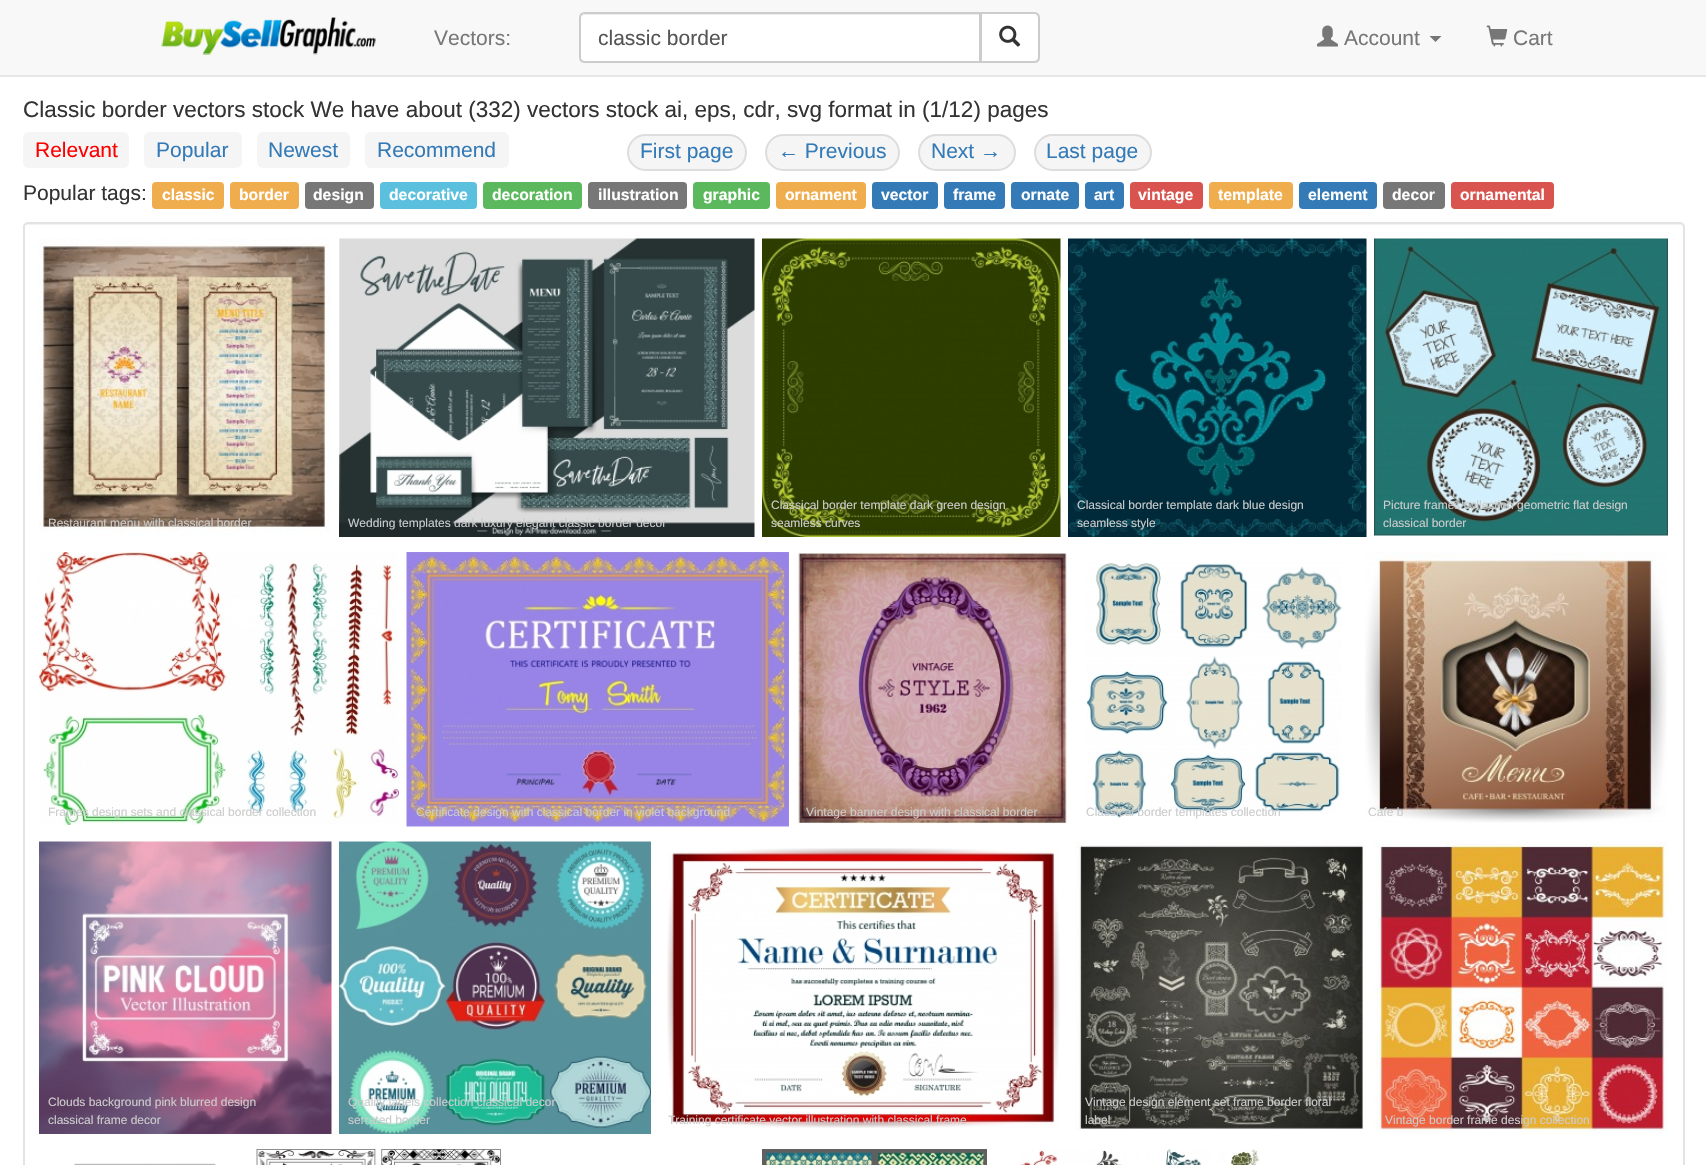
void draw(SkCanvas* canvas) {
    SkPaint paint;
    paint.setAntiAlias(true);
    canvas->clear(0xFFFFFFFF);
    paint.setColor(0xFFF8F8F8);
    canvas->drawRect(SkRect::MakeXYWH(0, 0, 1706, 75), paint);
    paint.setColor(0xFFE7E7E7);
    canvas->drawRect(SkRect::MakeXYWH(0, 75, 1706, 2), paint);
    canvas->drawImageRect(SkImages::DeferredFromEncodedData(SkData::MakeFromFileName("img1.png")), SkRect::MakeXYWH(161, 17, 215, 38), SkSamplingOptions());
    SkFont font1(fontMgr->matchFamilyStyle("Liberation Sans", SkFontStyle::Normal()), 21);
    font1.setSubpixel(true);
    paint.setColor(0xFF777777);
    canvas->drawString("Vectors:", 434, 45, font1, paint);
    paint.setColor(0xFFFFFFFF);
    canvas->drawPath(SkPathBuilder().moveTo(585, 12).lineTo(981, 12).lineTo(981, 63).lineTo(585, 63).cubicTo(581.5f, 63, 579, 60.5f, 579, 57).lineTo(579, 18).cubicTo(579, 14.5f, 581.5f, 12, 585, 12).close().detach(), paint);
    paint.setColor(0xFFECECEC);
    canvas->drawPath(SkPathBuilder().moveTo(585, 15).lineTo(980, 15).lineTo(980, 14).lineTo(586, 14).cubicTo(584, 14, 583, 15, 582, 16).close().detach(), paint);
    paint.setStyle(SkPaint::kStroke_Style);
    paint.setStrokeWidth(2);
    paint.setColor(0xFFCCCCCC);
    canvas->drawPath(SkPathBuilder().moveTo(585, 13).lineTo(980, 13).lineTo(980, 62).lineTo(585, 62).cubicTo(582, 62, 580, 60, 580, 57).lineTo(580, 18).cubicTo(580, 15, 582, 13, 585, 13).close().detach(), paint);
    paint.setStyle(SkPaint::kFill_Style);
    paint.setColor(0xFF555555);
    canvas->drawString("classic border", 598, 45, font1, paint);
    paint.setColor(0xFFFFFFFF);
    canvas->drawPath(SkPathBuilder().moveTo(981, 13).lineTo(1034, 13).cubicTo(1037, 13, 1039, 15, 1039, 18).lineTo(1039, 57).cubicTo(1039, 60, 1037, 62, 1034, 62).lineTo(981, 62).close().detach(), paint);
    paint.setStyle(SkPaint::kStroke_Style);
    paint.setColor(0xFFCCCCCC);
    canvas->drawPath(SkPathBuilder().moveTo(981, 13).lineTo(1034, 13).cubicTo(1037, 13, 1039, 15, 1039, 18).lineTo(1039, 57).cubicTo(1039, 60, 1037, 62, 1034, 62).lineTo(981, 62).close().detach(), paint);
    canvas->drawImageRect(SkImages::DeferredFromEncodedData(SkData::MakeFromFileName("img2.png")), SkRect::MakeXYWH(999, 25, 22, 22), SkSamplingOptions());
    canvas->drawImageRect(SkImages::DeferredFromEncodedData(SkData::MakeFromFileName("img3.png")), SkRect::MakeXYWH(1317, 25, 21, 22), SkSamplingOptions());
    paint.setStyle(SkPaint::kFill_Style);
    paint.setColor(0xFF777777);
    canvas->drawString("Account", 1344, 45, font1, paint);
    canvas->drawPath(SkPathBuilder().moveTo(1429.5f, 36).lineTo(1441.5f, 36).lineTo(1435.5f, 42).close().detach(), paint);
    canvas->drawImageRect(SkImages::DeferredFromEncodedData(SkData::MakeFromFileName("img4.png")), SkRect::MakeXYWH(1486, 25, 22, 22), SkSamplingOptions());
    canvas->drawString("Cart", 1513, 45, font1, paint);
    SkFont font2(fontMgr->matchFamilyStyle("Liberation Sans", SkFontStyle::Normal()), 22.5f);
    font2.setSubpixel(true);
    paint.setColor(0xFF333333);
    canvas->drawString("Classic border vectors stock We have about (332) vectors stock ai, eps, cdr, svg format in (1/12) pages", 23, 117, font2, paint);
    paint.setColor(0xFFF5F5F5);
    canvas->drawRoundRect(SkRect::MakeXYWH(23, 132, 106, 36), 6, 6, paint);
    paint.setColor(0xFFFF0000);
    canvas->drawString("Relevant", 35, 157, font1, paint);
    paint.setColor(0xFFF5F5F5);
    canvas->drawRoundRect(SkRect::MakeXYWH(144, 132, 98, 36), 6, 6, paint);
    paint.setColor(0xFF337AB7);
    canvas->drawString("Popular", 156, 157, font1, paint);
    paint.setColor(0xFFF5F5F5);
    canvas->drawRoundRect(SkRect::MakeXYWH(257, 132, 93, 36), 6, 6, paint);
    paint.setColor(0xFF337AB7);
    canvas->drawString("Newest", 268, 157, font1, paint);
    paint.setColor(0xFFF5F5F5);
    canvas->drawRoundRect(SkRect::MakeXYWH(365, 132, 144, 36), 6, 6, paint);
    paint.setColor(0xFF337AB7);
    canvas->drawString("Recommend", 377, 157, font1, paint);
    paint.setColor(0xFFF5F5F5);
    canvas->drawRoundRect(SkRect::MakeXYWH(628, 135, 118, 35), 17.5f, 17.5f, paint);
    paint.setStyle(SkPaint::kStroke_Style);
    paint.setColor(0xFFDDDDDD);
    canvas->drawRoundRect(SkRect::MakeXYWH(628, 135, 118, 35), 17.5f, 17.5f, paint);
    paint.setStyle(SkPaint::kFill_Style);
    paint.setColor(0xFF337AB7);
    canvas->drawString("First page", 640, 158, font1, paint);
    paint.setColor(0xFFF5F5F5);
    canvas->drawRoundRect(SkRect::MakeXYWH(766, 135, 133, 35), 17.5f, 17.5f, paint);
    paint.setStyle(SkPaint::kStroke_Style);
    paint.setColor(0xFFDDDDDD);
    canvas->drawRoundRect(SkRect::MakeXYWH(766, 135, 133, 35), 17.5f, 17.5f, paint);
    paint.setStyle(SkPaint::kFill_Style);
    paint.setColor(0xFF337AB7);
    canvas->drawString("← Previous", 778, 158, font1, paint);
    paint.setColor(0xFFF5F5F5);
    canvas->drawRoundRect(SkRect::MakeXYWH(919, 135, 96, 35), 17.5f, 17.5f, paint);
    paint.setStyle(SkPaint::kStroke_Style);
    paint.setColor(0xFFDDDDDD);
    canvas->drawRoundRect(SkRect::MakeXYWH(919, 135, 96, 35), 17.5f, 17.5f, paint);
    paint.setStyle(SkPaint::kFill_Style);
    paint.setColor(0xFF337AB7);
    canvas->drawString("Next →", 931, 158, font1, paint);
    paint.setColor(0xFFF5F5F5);
    canvas->drawRoundRect(SkRect::MakeXYWH(1035, 135, 116, 35), 17.5f, 17.5f, paint);
    paint.setStyle(SkPaint::kStroke_Style);
    paint.setColor(0xFFDDDDDD);
    canvas->drawRoundRect(SkRect::MakeXYWH(1035, 135, 116, 35), 17.5f, 17.5f, paint);
    paint.setStyle(SkPaint::kFill_Style);
    paint.setColor(0xFF337AB7);
    canvas->drawString("Last page", 1046, 158, font1, paint);
    paint.setColor(0xFF333333);
    canvas->drawString("Popular tags:", 23, 200, font1, paint);
    paint.setColor(0xFFF0AD4E);
    canvas->drawRoundRect(SkRect::MakeXYWH(152, 182, 72, 27), 4, 4, paint);
    SkFont font3(fontMgr->matchFamilyStyle("Liberation Sans", SkFontStyle::Bold()), 15.75f);
    font3.setSubpixel(true);
    paint.setColor(0xFFFFFFFF);
    canvas->drawString("classic", 162, 200, font3, paint);
    paint.setColor(0xFFF0AD4E);
    canvas->drawRoundRect(SkRect::MakeXYWH(230, 182, 69, 27), 4, 4, paint);
    paint.setColor(0xFFFFFFFF);
    canvas->drawString("border", 239, 200, font3, paint);
    paint.setColor(0xFF777777);
    canvas->drawRoundRect(SkRect::MakeXYWH(305, 182, 69, 27), 4, 4, paint);
    paint.setColor(0xFFFFFFFF);
    canvas->drawString("design", 313, 200, font3, paint);
    paint.setColor(0xFF5BC0DE);
    canvas->drawRoundRect(SkRect::MakeXYWH(380, 182, 97, 27), 4, 4, paint);
    paint.setColor(0xFFFFFFFF);
    canvas->drawString("decorative", 389, 200, font3, paint);
    paint.setColor(0xFF5CB85C);
    canvas->drawRoundRect(SkRect::MakeXYWH(483, 182, 99, 27), 4, 4, paint);
    paint.setColor(0xFFFFFFFF);
    canvas->drawString("decoration", 492, 200, font3, paint);
    paint.setColor(0xFF777777);
    canvas->drawRoundRect(SkRect::MakeXYWH(588, 182, 99, 27), 4, 4, paint);
    paint.setColor(0xFFFFFFFF);
    canvas->drawString("illustration", 598, 200, font3, paint);
    paint.setColor(0xFF5CB85C);
    canvas->drawRoundRect(SkRect::MakeXYWH(693, 182, 77, 27), 4, 4, paint);
    paint.setColor(0xFFFFFFFF);
    canvas->drawString("graphic", 703, 200, font3, paint);
    paint.setColor(0xFFF0AD4E);
    canvas->drawRoundRect(SkRect::MakeXYWH(776, 182, 90, 27), 4, 4, paint);
    paint.setColor(0xFFFFFFFF);
    canvas->drawString("ornament", 785, 200, font3, paint);
    paint.setColor(0xFF337AB7);
    canvas->drawRoundRect(SkRect::MakeXYWH(872, 182, 66, 27), 4, 4, paint);
    paint.setColor(0xFFFFFFFF);
    canvas->drawString("vector", 881, 200, font3, paint);
    paint.setColor(0xFF337AB7);
    canvas->drawRoundRect(SkRect::MakeXYWH(944, 182, 61, 27), 4, 4, paint);
    paint.setColor(0xFFFFFFFF);
    canvas->drawString("frame", 953, 200, font3, paint);
    paint.setColor(0xFF337AB7);
    canvas->drawRoundRect(SkRect::MakeXYWH(1011, 182, 68, 27), 4, 4, paint);
    paint.setColor(0xFFFFFFFF);
    canvas->drawString("ornate", 1021, 200, font3, paint);
    paint.setColor(0xFF337AB7);
    canvas->drawRoundRect(SkRect::MakeXYWH(1085, 182, 39, 27), 4, 4, paint);
    paint.setColor(0xFFFFFFFF);
    canvas->drawString("art", 1094, 200, font3, paint);
    paint.setColor(0xFFD9534F);
    canvas->drawRoundRect(SkRect::MakeXYWH(1130, 182, 73, 27), 4, 4, paint);
    paint.setColor(0xFFFFFFFF);
    canvas->drawString("vintage", 1138, 200, font3, paint);
    paint.setColor(0xFFF0AD4E);
    canvas->drawRoundRect(SkRect::MakeXYWH(1209, 182, 84, 27), 4, 4, paint);
    paint.setColor(0xFFFFFFFF);
    canvas->drawString("template", 1218, 200, font3, paint);
    paint.setColor(0xFF337AB7);
    canvas->drawRoundRect(SkRect::MakeXYWH(1299, 182, 78, 27), 4, 4, paint);
    paint.setColor(0xFFFFFFFF);
    canvas->drawString("element", 1308, 200, font3, paint);
    paint.setColor(0xFF777777);
    canvas->drawRoundRect(SkRect::MakeXYWH(1383, 182, 62, 27), 4, 4, paint);
    paint.setColor(0xFFFFFFFF);
    canvas->drawString("decor", 1392, 200, font3, paint);
    paint.setColor(0xFFD9534F);
    canvas->drawRoundRect(SkRect::MakeXYWH(1451, 182, 103, 27), 4, 4, paint);
    paint.setColor(0xFFFFFFFF);
    canvas->drawString("ornamental", 1460, 200, font3, paint);
    paint.setColor(0xFFF2F2F2);
    canvas->drawPath(SkPathBuilder().moveTo(27, 225).lineTo(1680, 225).cubicTo(1682, 225, 1683, 226, 1683, 228).lineTo(1683, 227).cubicTo(1683, 225, 1682, 224, 1680, 224).lineTo(27, 224).cubicTo(25, 224, 24, 225, 24, 227).lineTo(24, 228).cubicTo(24, 226, 25, 225, 27, 225).close().detach(), paint);
    paint.setStyle(SkPaint::kStroke_Style);
    paint.setColor(0xFFE3E3E3);
    canvas->drawRoundRect(SkRect::MakeXYWH(24, 223, 1660, 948), 4, 4, paint);
    canvas->drawImageRect(SkImages::DeferredFromEncodedData(SkData::MakeFromFileName("img5.png")), SkRect::MakeXYWH(39, 238, 292, 298), SkSamplingOptions());
    SkFont font4(fontMgr->matchFamilyStyle("Liberation Sans", SkFontStyle::Normal()), 12);
    font4.setSubpixel(true);
    paint.setStyle(SkPaint::kFill_Style);
    paint.setColor(0xFFCCCCCC);
    canvas->drawString("Restaurant menu with classical border", 48, 527, font4, paint);
    canvas->drawImageRect(SkImages::DeferredFromEncodedData(SkData::MakeFromFileName("img6.png")), SkRect::MakeXYWH(339, 238, 416, 299), SkSamplingOptions());
    canvas->drawString("Wedding templates dark luxury elegant classic border decor", 348, 527, font4, paint);
    canvas->drawImageRect(SkImages::DeferredFromEncodedData(SkData::MakeFromFileName("img7.png")), SkRect::MakeXYWH(762, 238, 299, 299), SkSamplingOptions());
    canvas->drawString("Classical border template dark green design", 771, 509, font4, paint);
    canvas->drawString("seamless curves", 771, 527, font4, paint);
    canvas->drawImageRect(SkImages::DeferredFromEncodedData(SkData::MakeFromFileName("img8.png")), SkRect::MakeXYWH(1068, 238, 299, 299), SkSamplingOptions());
    canvas->drawString("Classical border template dark blue design", 1077, 509, font4, paint);
    canvas->drawString("seamless style", 1077, 527, font4, paint);
    canvas->drawImageRect(SkImages::DeferredFromEncodedData(SkData::MakeFromFileName("img9.png")), SkRect::MakeXYWH(1374, 238, 294, 298), SkSamplingOptions());
    canvas->drawString("Picture frames collection geometric flat design", 1383, 509, font4, paint);
    canvas->drawString("classical border", 1383, 527, font4, paint);
    canvas->drawImageRect(SkImages::DeferredFromEncodedData(SkData::MakeFromFileName("img10.png")), SkRect::MakeXYWH(39, 552, 360, 273), SkSamplingOptions());
    canvas->drawString("Frames design sets and classical border collection", 48, 816, font4, paint);
    canvas->drawImageRect(SkImages::DeferredFromEncodedData(SkData::MakeFromFileName("img11.png")), SkRect::MakeXYWH(406, 552, 383, 275), SkSamplingOptions());
    canvas->drawString("Certificate design with classical border in violet background", 416, 816, font4, paint);
    canvas->drawImageRect(SkImages::DeferredFromEncodedData(SkData::MakeFromFileName("img12.png")), SkRect::MakeXYWH(798, 552, 270, 272), SkSamplingOptions());
    canvas->drawString("Vintage banner design with classical border", 806, 816, font4, paint);
    canvas->drawImageRect(SkImages::DeferredFromEncodedData(SkData::MakeFromFileName("img13.png")), SkRect::MakeXYWH(1086, 562, 256, 256), SkSamplingOptions());
    canvas->drawString("Classical border templates collection", 1086, 816, font4, paint);
    canvas->drawImageRect(SkImages::DeferredFromEncodedData(SkData::MakeFromFileName("img14.png")), SkRect::MakeXYWH(1365, 552, 302, 271), SkSamplingOptions());
    canvas->drawString("Cafe b", 1368, 816, font4, paint);
    canvas->drawImageRect(SkImages::DeferredFromEncodedData(SkData::MakeFromFileName("img15.png")), SkRect::MakeXYWH(39, 841, 293, 293), SkSamplingOptions());
    canvas->drawString("Clouds background pink blurred design", 48, 1106, font4, paint);
    canvas->drawString("classical frame decor", 48, 1124, font4, paint);
    canvas->drawImageRect(SkImages::DeferredFromEncodedData(SkData::MakeFromFileName("img16.png")), SkRect::MakeXYWH(339, 841, 312, 293), SkSamplingOptions());
    canvas->drawString("Quality labels collection classical decor", 348, 1106, font4, paint);
    canvas->drawString("serrated border", 348, 1124, font4, paint);
    canvas->drawImageRect(SkImages::DeferredFromEncodedData(SkData::MakeFromFileName("img17.png")), SkRect::MakeXYWH(667, 848, 393, 280), SkSamplingOptions());
    canvas->drawString("Training certificate vector illustration with classical frame", 668, 1124, font4, paint);
    canvas->drawImageRect(SkImages::DeferredFromEncodedData(SkData::MakeFromFileName("img18.png")), SkRect::MakeXYWH(1075, 842, 289, 288), SkSamplingOptions());
    canvas->drawString("Vintage design element set frame border floral", 1085, 1106, font4, paint);
    canvas->drawString("label", 1085, 1124, font4, paint);
    canvas->drawImageRect(SkImages::DeferredFromEncodedData(SkData::MakeFromFileName("img19.png")), SkRect::MakeXYWH(1375, 841, 293, 293), SkSamplingOptions());
    canvas->drawString("Vintage border frame design collection", 1385, 1124, font4, paint);
    canvas->drawImageRect(SkImages::DeferredFromEncodedData(SkData::MakeFromFileName("img20.png")), SkRect::MakeXYWH(73, 1163, 143, 2), SkSamplingOptions());
    canvas->drawImageRect(SkImages::DeferredFromEncodedData(SkData::MakeFromFileName("img21.png")), SkRect::MakeXYWH(256, 1149, 245, 16), SkSamplingOptions());
    canvas->drawImageRect(SkImages::DeferredFromEncodedData(SkData::MakeFromFileName("img22.png")), SkRect::MakeXYWH(762, 1149, 225, 16), SkSamplingOptions());
    canvas->drawImageRect(SkImages::DeferredFromEncodedData(SkData::MakeFromFileName("img23.png")), SkRect::MakeXYWH(1020, 1149, 239, 16), SkSamplingOptions());
}
